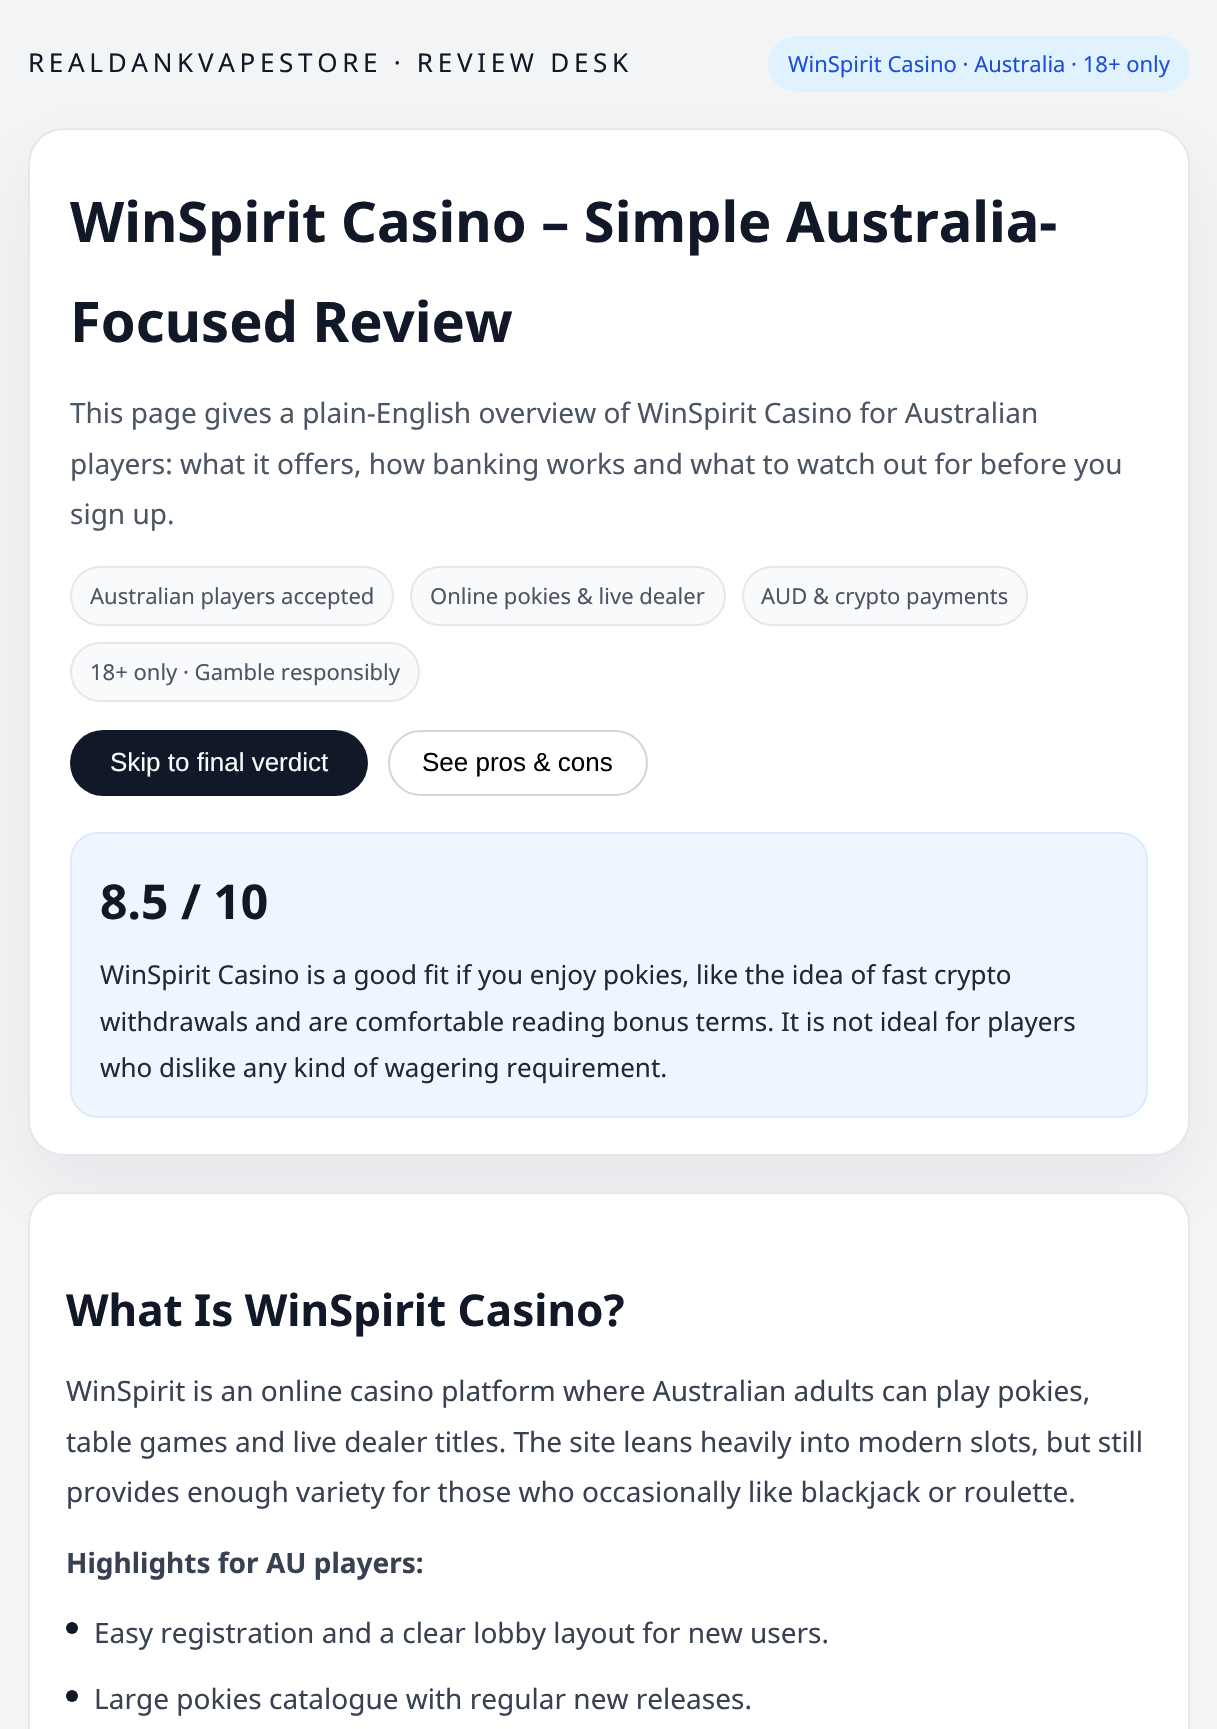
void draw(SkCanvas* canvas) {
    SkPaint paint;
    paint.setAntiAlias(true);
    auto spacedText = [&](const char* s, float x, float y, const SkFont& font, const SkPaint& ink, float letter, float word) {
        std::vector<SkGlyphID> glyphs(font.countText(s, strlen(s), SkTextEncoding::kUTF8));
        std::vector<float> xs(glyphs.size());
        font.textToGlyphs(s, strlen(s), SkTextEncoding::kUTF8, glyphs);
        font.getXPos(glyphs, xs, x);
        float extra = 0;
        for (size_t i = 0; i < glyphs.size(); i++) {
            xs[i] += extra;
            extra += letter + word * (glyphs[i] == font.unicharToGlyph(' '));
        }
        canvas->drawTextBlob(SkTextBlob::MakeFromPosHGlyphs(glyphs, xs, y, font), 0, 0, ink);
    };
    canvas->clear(0xFFF3F4F6);
    paint.setColor(0x0F0F172A);
    paint.setMaskFilter(SkMaskFilter::MakeBlur(kNormal_SkBlurStyle, 40));
    canvas->drawRoundRect(SkRect::MakeXYWH(28, 160, 1162, 1028), 36, 36, paint);
    paint.setMaskFilter(nullptr);
    SkFont font1(fontMgr->matchFamilyStyle("Noto Sans", SkFontStyle::Normal()), 26);
    font1.setSubpixel(true);
    paint.setColor(0xFF111827);
    spacedText("REALDANKVAPESTORE · REVIEW DESK", 28, 72, font1, paint, 4.7f, 0);
    paint.setColor(0xFFE0F2FE);
    canvas->drawRoundRect(SkRect::MakeXYWH(768, 36, 422, 56), 28, 28, paint);
    SkFont font2(fontMgr->matchFamilyStyle("Noto Sans", SkFontStyle::Normal()), 22);
    font2.setSubpixel(true);
    paint.setColor(0xFF1D4ED8);
    canvas->drawString("WinSpirit Casino · Australia · 18+ only", 788, 72, font2, paint);
    paint.setColor(0xFFFFFFFF);
    canvas->drawRoundRect(SkRect::MakeXYWH(29, 129, 1160, 1026), 35, 35, paint);
    paint.setStyle(SkPaint::kStroke_Style);
    paint.setStrokeWidth(2);
    paint.setColor(0xFFE5E7EB);
    canvas->drawRoundRect(SkRect::MakeXYWH(29, 129, 1160, 1026), 35, 35, paint);
    SkFont font3(fontMgr->matchFamilyStyle("Noto Sans", SkFontStyle::Bold()), 56);
    font3.setSubpixel(true);
    paint.setStyle(SkPaint::kFill_Style);
    paint.setColor(0xFF111827);
    canvas->drawString("WinSpirit Casino – Simple Australia-", 70, 242, font3, paint);
    canvas->drawString("Focused Review", 70, 342, font3, paint);
    SkFont font4(fontMgr->matchFamilyStyle("Noto Sans", SkFontStyle::Normal()), 28);
    font4.setSubpixel(true);
    paint.setColor(0xFF4B5563);
    canvas->drawString("This page gives a plain-English overview of WinSpirit Casino for Australian", 70, 423, font4, paint);
    canvas->drawString("players: what it offers, how banking works and what to watch out for before you", 70, 474, font4, paint);
    canvas->drawString("sign up.", 70, 524, font4, paint);
    paint.setColor(0xFFF9FAFB);
    canvas->drawRoundRect(SkRect::MakeXYWH(71, 567, 322, 58), 29, 29, paint);
    paint.setStyle(SkPaint::kStroke_Style);
    paint.setColor(0xFFE5E7EB);
    canvas->drawRoundRect(SkRect::MakeXYWH(71, 567, 322, 58), 29, 29, paint);
    paint.setStyle(SkPaint::kFill_Style);
    paint.setColor(0xFF4B5563);
    canvas->drawString("Australian players accepted", 90, 604, font2, paint);
    paint.setColor(0xFFF9FAFB);
    canvas->drawRoundRect(SkRect::MakeXYWH(411, 567, 314, 58), 29, 29, paint);
    paint.setStyle(SkPaint::kStroke_Style);
    paint.setColor(0xFFE5E7EB);
    canvas->drawRoundRect(SkRect::MakeXYWH(411, 567, 314, 58), 29, 29, paint);
    paint.setStyle(SkPaint::kFill_Style);
    paint.setColor(0xFF4B5563);
    canvas->drawString("Online pokies & live dealer", 430, 604, font2, paint);
    paint.setColor(0xFFF9FAFB);
    canvas->drawRoundRect(SkRect::MakeXYWH(743, 567, 284, 58), 29, 29, paint);
    paint.setStyle(SkPaint::kStroke_Style);
    paint.setColor(0xFFE5E7EB);
    canvas->drawRoundRect(SkRect::MakeXYWH(743, 567, 284, 58), 29, 29, paint);
    paint.setStyle(SkPaint::kFill_Style);
    paint.setColor(0xFF4B5563);
    canvas->drawString("AUD & crypto payments", 761, 604, font2, paint);
    paint.setColor(0xFFF9FAFB);
    canvas->drawRoundRect(SkRect::MakeXYWH(71, 643, 348, 58), 29, 29, paint);
    paint.setStyle(SkPaint::kStroke_Style);
    paint.setColor(0xFFE5E7EB);
    canvas->drawRoundRect(SkRect::MakeXYWH(71, 643, 348, 58), 29, 29, paint);
    paint.setStyle(SkPaint::kFill_Style);
    paint.setColor(0xFF4B5563);
    canvas->drawString("18+ only · Gamble responsibly", 90, 680, font2, paint);
    paint.setColor(0xFF111827);
    canvas->drawRoundRect(SkRect::MakeXYWH(70, 730, 298, 66), 33, 33, paint);
    SkFont font5(fontMgr->matchFamilyStyle("Liberation Sans", SkFontStyle::Normal()), 26);
    font5.setSubpixel(true);
    paint.setColor(0xFFF9FAFB);
    canvas->drawString("Skip to final verdict", 110, 771, font5, paint);
    paint.setStyle(SkPaint::kStroke_Style);
    paint.setColor(0xFFD1D5DB);
    canvas->drawRoundRect(SkRect::MakeXYWH(389, 731, 258, 64), 32, 32, paint);
    paint.setStyle(SkPaint::kFill_Style);
    paint.setColor(0xFF000000);
    canvas->drawString("See pros & cons", 422, 771, font5, paint);
    paint.setColor(0xFFEFF6FF);
    canvas->drawRoundRect(SkRect::MakeXYWH(71, 833, 1076, 284), 27, 27, paint);
    paint.setStyle(SkPaint::kStroke_Style);
    paint.setColor(0xFFDBEAFE);
    canvas->drawRoundRect(SkRect::MakeXYWH(71, 833, 1076, 284), 27, 27, paint);
    SkFont font6(fontMgr->matchFamilyStyle("Noto Sans", SkFontStyle::Bold()), 48);
    font6.setSubpixel(true);
    paint.setStyle(SkPaint::kFill_Style);
    paint.setColor(0xFF111827);
    canvas->drawString("8.5 / 10", 100, 919, font6, paint);
    paint.setColor(0xFF1F2937);
    canvas->drawString("WinSpirit Casino is a good fit if you enjoy pokies, like the idea of fast crypto", 100, 984, font1, paint);
    canvas->drawString("withdrawals and are comfortable reading bonus terms. It is not ideal for players", 100, 1031, font1, paint);
    canvas->drawString("who dislike any kind of wagering requirement.", 100, 1077, font1, paint);
    paint.setColor(0xFFFFFFFF);
    canvas->drawRoundRect(SkRect::MakeXYWH(29, 1193, 1160, 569), 31, 31, paint);
    paint.setStyle(SkPaint::kStroke_Style);
    paint.setColor(0xFFE5E7EB);
    canvas->drawRoundRect(SkRect::MakeXYWH(29, 1193, 1160, 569), 31, 31, paint);
    SkFont font7(fontMgr->matchFamilyStyle("Noto Sans", SkFontStyle::Bold()), 44);
    font7.setSubpixel(true);
    paint.setStyle(SkPaint::kFill_Style);
    paint.setColor(0xFF111827);
    canvas->drawString("What Is WinSpirit Casino?", 66, 1326, font7, paint);
    paint.setColor(0xFF374151);
    canvas->drawString("WinSpirit is an online casino platform where Australian adults can play pokies,", 66, 1401, font4, paint);
    canvas->drawString("table games and live dealer titles. The site leans heavily into modern slots, but still", 66, 1452, font4, paint);
    canvas->drawString("provides enough variety for those who occasionally like blackjack or roulette.", 66, 1502, font4, paint);
    SkFont font8(fontMgr->matchFamilyStyle("Noto Sans", SkFontStyle::Bold()), 28);
    font8.setSubpixel(true);
    canvas->drawString("Highlights for AU players:", 66, 1573, font8, paint);
    paint.setColor(0xFF111827);
    canvas->drawCircle(72, 1628, 6, paint);
    paint.setColor(0xFF374151);
    canvas->drawString("Easy registration and a clear lobby layout for new users.", 94, 1643, font4, paint);
    paint.setColor(0xFF111827);
    canvas->drawCircle(72, 1696, 6, paint);
    paint.setColor(0xFF374151);
    canvas->drawString("Large pokies catalogue with regular new releases.", 94, 1709, font4, paint);
}
